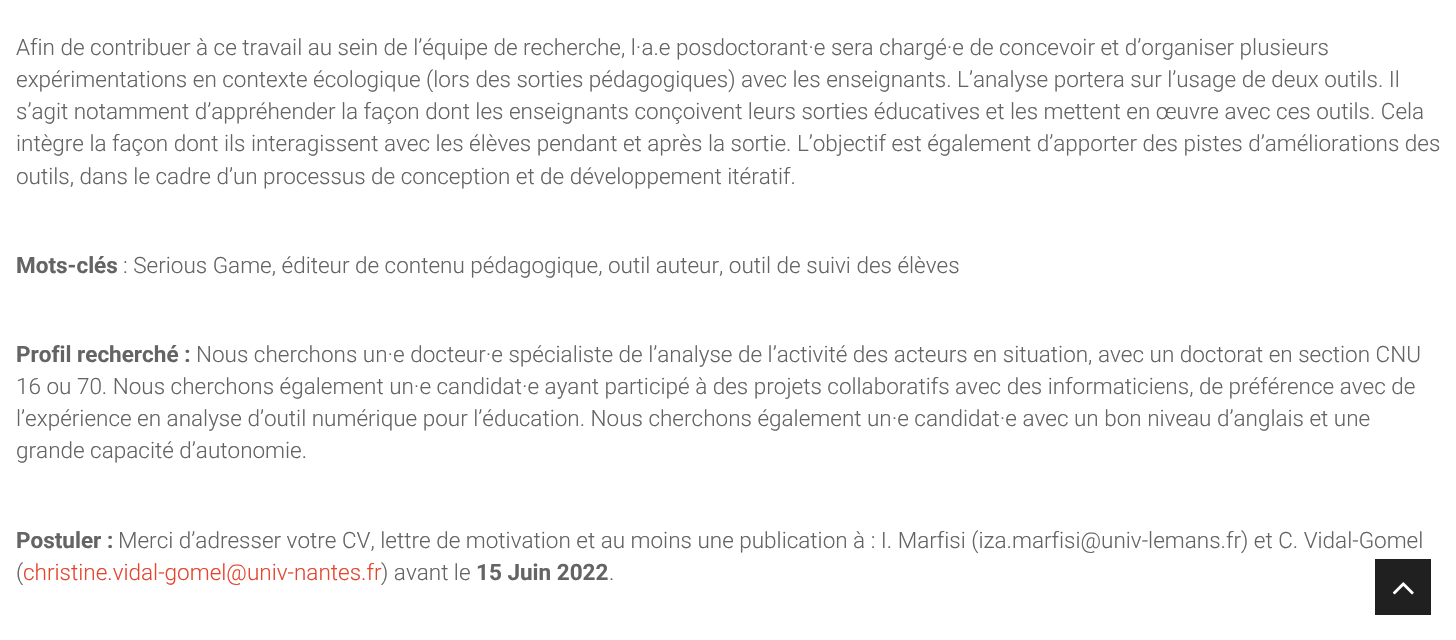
void draw(SkCanvas* canvas) {
    SkPaint paint;
    paint.setAntiAlias(true);
    canvas->clear(0xFFFFFFFF);
    SkFont font1(fontMgr->matchFamilyStyle("Roboto", SkFontStyle(300, SkFontStyle::kNormal_Width, SkFontStyle::kUpright_Slant)), 22.5f);
    font1.setSubpixel(true);
    paint.setColor(0xFF646464);
    canvas->drawString("Afin de contribuer à ce travail au sein de l’équipe de recherche, l·a.e posdoctorant·e sera chargé·e de concevoir et d’organiser plusieurs", 16, 55, font1, paint);
    canvas->drawString("expérimentations en contexte écologique (lors des sorties pédagogiques) avec les enseignants. L’analyse portera sur l’usage de deux outils. Il", 16, 87, font1, paint);
    canvas->drawString("s’agit notamment d’appréhender la façon dont les enseignants conçoivent leurs sorties éducatives et les mettent en œuvre avec ces outils. Cela", 16, 119, font1, paint);
    canvas->drawString("intègre la façon dont ils interagissent avec les élèves pendant et après la sortie. L’objectif est également d’apporter des pistes d’améliorations des", 16, 151, font1, paint);
    canvas->drawString("outils, dans le cadre d’un processus de conception et de développement itératif.", 16, 184, font1, paint);
    SkFont font2(fontMgr->matchFamilyStyle("Roboto", SkFontStyle::Bold()), 22.5f);
    font2.setSubpixel(true);
    canvas->drawString("Mots-clés", 16, 273, font2, paint);
    canvas->drawString(": Serious Game, éditeur de contenu pédagogique, outil auteur, outil de suivi des élèves", 123, 273, font1, paint);
    canvas->drawString("Profil recherché :", 16, 362, font2, paint);
    canvas->drawString("Nous cherchons un·e docteur·e spécialiste de l’analyse de l’activité des acteurs en situation, avec un doctorat en section CNU", 196, 362, font1, paint);
    canvas->drawString("16 ou 70. Nous cherchons également un·e candidat·e ayant participé à des projets collaboratifs avec des informaticiens, de préférence avec de", 16, 394, font1, paint);
    canvas->drawString("l’expérience en analyse d’outil numérique pour l’éducation. Nous cherchons également un·e candidat·e avec un bon niveau d’anglais et une", 16, 426, font1, paint);
    canvas->drawString("grande capacité d’autonomie.", 16, 458, font1, paint);
    canvas->drawString("Postuler :", 16, 548, font2, paint);
    canvas->drawString("Merci d’adresser votre CV, lettre de motivation et au moins une publication à : I. Marfisi (iza.marfisi@univ-lemans.fr) et C. Vidal-Gomel", 118, 548, font1, paint);
    canvas->drawString("(", 16, 580, font1, paint);
    paint.setColor(0xFFE5442D);
    canvas->drawString("christine.vidal-gomel@univ-nantes.fr", 23, 580, font1, paint);
    paint.setColor(0xFF646464);
    canvas->drawString(") avant le", 381, 580, font1, paint);
    canvas->drawString("15 Juin 2022", 476, 580, font2, paint);
    canvas->drawString(".", 609, 580, font1, paint);
    paint.setColor(0xFF202020);
    canvas->drawRect(SkRect::MakeXYWH(1375, 559, 56, 56), paint);
    canvas->drawImageRect(SkImages::DeferredFromEncodedData(SkData::MakeFromFileName("img1.png")), SkRect::MakeXYWH(1392, 582, 22, 13), SkSamplingOptions());
}
